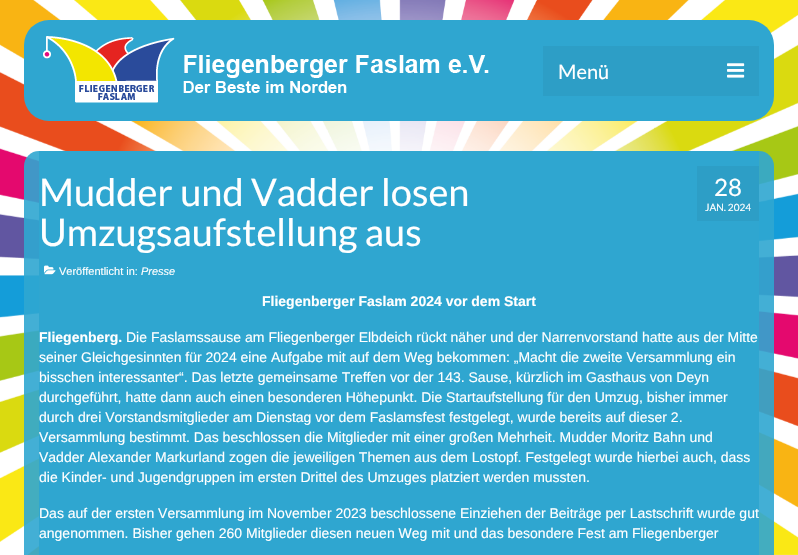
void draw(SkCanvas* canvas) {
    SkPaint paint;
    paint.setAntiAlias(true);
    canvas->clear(0xFFFFFFFF);
    canvas->drawImageRect(SkImages::DeferredFromEncodedData(SkData::MakeFromFileName("img1.png")), SkRect::MakeXYWH(0, 0, 798, 555), SkSamplingOptions());
    canvas->drawImageRect(SkImages::DeferredFromEncodedData(SkData::MakeFromFileName("img2.png")), SkRect::MakeXYWH(24, 20, 750, 101), SkSamplingOptions());
    paint.setColor(0xFF2D9EC6);
    canvas->drawRect(SkRect::MakeXYWH(543, 46, 216, 50), paint);
    SkFont font1(fontMgr->matchFamilyStyle("Lato", SkFontStyle::Normal()), 20);
    font1.setSubpixel(true);
    paint.setColor(0xFFFFFFFF);
    canvas->drawString("Menü", 558, 79, font1, paint);
    canvas->drawImageRect(SkImages::DeferredFromEncodedData(SkData::MakeFromFileName("img3.png")), SkRect::MakeXYWH(727, 63, 18, 15), SkSamplingOptions());
    paint.setColor(0xE62FA6D0);
    canvas->drawRoundRect(SkRect::MakeXYWH(24, 151, 750, 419), 15, 15, paint);
    paint.setColor(0xFF2FA6D0);
    canvas->drawRect(SkRect::MakeXYWH(39, 151, 720, 404), paint);
    SkFont font2(fontMgr->matchFamilyStyle("Lato", SkFontStyle::Normal()), 38);
    font2.setSubpixel(true);
    paint.setColor(0xFFFFFFFF);
    canvas->drawString("Mudder und Vadder losen", 39, 206, font2, paint);
    canvas->drawString("Umzugsaufstellung aus", 39, 246, font2, paint);
    canvas->drawImageRect(SkImages::DeferredFromEncodedData(SkData::MakeFromFileName("img4.png")), SkRect::MakeXYWH(44, 265, 12, 10), SkSamplingOptions());
    SkFont font3(fontMgr->matchFamilyStyle("Liberation Sans", SkFontStyle::Normal()), 11);
    font3.setSubpixel(true);
    canvas->drawString("Veröffentlicht in:", 59, 275, font3, paint);
    SkFont font4(fontMgr->matchFamilyStyle("Liberation Sans", SkFontStyle::Italic()), 11);
    font4.setSubpixel(true);
    canvas->drawString("Presse", 141, 275, font4, paint);
    paint.setColor(0xFF2D9EC6);
    canvas->drawRect(SkRect::MakeXYWH(697, 166, 62, 55), paint);
    SkFont font5(fontMgr->matchFamilyStyle("Lato", SkFontStyle::Normal()), 24);
    font5.setSubpixel(true);
    paint.setColor(0xFFFFFFFF);
    canvas->drawString("28", 714, 196, font5, paint);
    SkFont font6(fontMgr->matchFamilyStyle("Lato", SkFontStyle::Normal()), 10);
    font6.setSubpixel(true);
    canvas->drawString("JAN. 2024", 705, 211, font6, paint);
    SkFont font7(fontMgr->matchFamilyStyle("Liberation Sans", SkFontStyle::Bold()), 14);
    font7.setSubpixel(true);
    canvas->drawString("Fliegenberger Faslam 2024 vor dem Start", 262, 306, font7, paint);
    canvas->drawString("Fliegenberg.", 39, 342, font7, paint);
    SkFont font8(fontMgr->matchFamilyStyle("Liberation Sans", SkFontStyle::Normal()), 14);
    font8.setSubpixel(true);
    canvas->drawString("Die Faslamssause am Fliegenberger Elbdeich rückt näher und der Narrenvorstand hatte aus der Mitte", 126, 342, font8, paint);
    canvas->drawString("seiner Gleichgesinnten für 2024 eine Aufgabe mit auf dem Weg bekommen: „Macht die zweite Versammlung ein", 39, 362, font8, paint);
    canvas->drawString("bisschen interessanter“. Das letzte gemeinsame Treffen vor der 143. Sause, kürzlich im Gasthaus von Deyn", 39, 382, font8, paint);
    canvas->drawString("durchgeführt, hatte dann auch einen besonderen Höhepunkt. Die Startaufstellung für den Umzug, bisher immer", 39, 402, font8, paint);
    canvas->drawString("durch drei Vorstandsmitglieder am Dienstag vor dem Faslamsfest festgelegt, wurde bereits auf dieser 2.", 39, 422, font8, paint);
    canvas->drawString("Versammlung bestimmt. Das beschlossen die Mitglieder mit einer großen Mehrheit. Mudder Moritz Bahn und", 39, 442, font8, paint);
    canvas->drawString("Vadder Alexander Markurland zogen die jeweiligen Themen aus dem Lostopf. Festgelegt wurde hierbei auch, dass", 39, 462, font8, paint);
    canvas->drawString("die Kinder- und Jugendgruppen im ersten Drittel des Umzuges platziert werden mussten.", 39, 482, font8, paint);
    canvas->drawString("Das auf der ersten Versammlung im November 2023 beschlossene Einziehen der Beiträge per Lastschrift wurde gut", 39, 518, font8, paint);
    canvas->drawString("angenommen. Bisher gehen 260 Mitglieder diesen neuen Weg mit und das besondere Fest am Fliegenberger", 39, 538, font8, paint);
}
